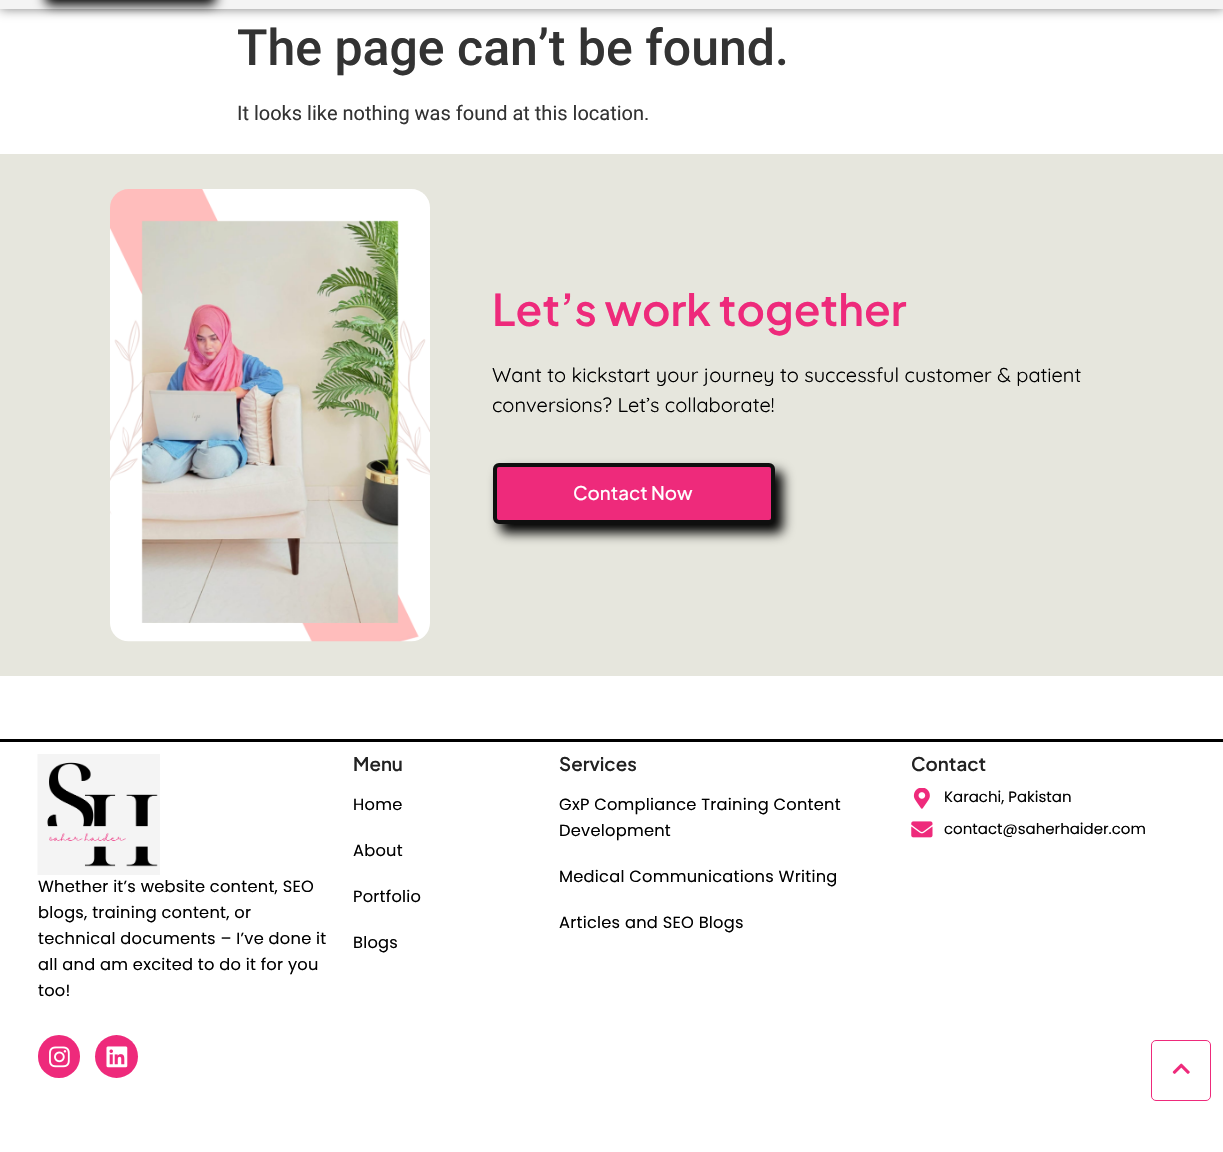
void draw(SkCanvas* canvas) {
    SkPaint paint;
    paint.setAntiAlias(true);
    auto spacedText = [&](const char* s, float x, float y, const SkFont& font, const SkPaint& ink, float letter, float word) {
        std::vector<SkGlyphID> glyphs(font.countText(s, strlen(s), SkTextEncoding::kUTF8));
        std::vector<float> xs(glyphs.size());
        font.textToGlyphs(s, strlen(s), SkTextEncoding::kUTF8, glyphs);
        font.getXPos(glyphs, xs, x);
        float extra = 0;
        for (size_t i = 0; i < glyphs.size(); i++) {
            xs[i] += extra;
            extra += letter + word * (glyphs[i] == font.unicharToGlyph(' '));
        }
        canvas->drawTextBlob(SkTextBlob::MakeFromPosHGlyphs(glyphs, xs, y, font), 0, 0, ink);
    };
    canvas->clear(0xFFFFFFFF);
    paint.setColor(0x80000000);
    paint.setMaskFilter(SkMaskFilter::MakeBlur(kNormal_SkBlurStyle, 6));
    canvas->drawRect(SkRect::MakeXYWH(0, -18, 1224, 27), paint);
    paint.setMaskFilter(nullptr);
    paint.setColor(0xFFF4F4F4);
    canvas->drawRect(SkRect::MakeXYWH(0, 0, 1223, 9), paint);
    paint.setColor(0xFF000000);
    paint.setMaskFilter(SkMaskFilter::MakeBlur(kNormal_SkBlurStyle, 6));
    canvas->drawRoundRect(SkRect::MakeXYWH(45, -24, 171, 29), 6, 6, paint);
    paint.setMaskFilter(nullptr);
    SkFont font1(fontMgr->matchFamilyStyle("Roboto", SkFontStyle(500, SkFontStyle::kNormal_Width, SkFontStyle::kUpright_Slant)), 50);
    font1.setSubpixel(true);
    paint.setColor(0xFF333333);
    canvas->drawString("The page can’t be found.", 237, 65, font1, paint);
    SkFont font2(fontMgr->matchFamilyStyle("Roboto", SkFontStyle::Normal()), 20);
    font2.setSubpixel(true);
    canvas->drawString("It looks like nothing was found at this location.", 237, 120, font2, paint);
    paint.setColor(0xFFE6E6DD);
    canvas->drawRect(SkRect::MakeXYWH(0, 154, 1223, 522), paint);
    canvas->drawImageRect(SkImages::DeferredFromEncodedData(SkData::MakeFromFileName("img1.png")), SkRect::MakeXYWH(110, 189, 320, 453), SkSamplingOptions());
    SkFont font3(fontMgr->matchFamilyStyle("Plus Jakarta Sans", SkFontStyle(600, SkFontStyle::kNormal_Width, SkFontStyle::kUpright_Slant)), 43.75f);
    font3.setSubpixel(true);
    paint.setColor(0xFFEE2A7B);
    canvas->drawString("Let’s work together", 492, 326, font3, paint);
    SkFont font4(fontMgr->matchFamilyStyle("Quicksand", SkFontStyle::Normal()), 20);
    font4.setSubpixel(true);
    paint.setColor(0xFF000000);
    canvas->drawString("Want to kickstart your journey to successful customer & patient", 492, 382, font4, paint);
    canvas->drawString("conversions? Let’s collaborate!", 492, 412, font4, paint);
    paint.setMaskFilter(SkMaskFilter::MakeBlur(kNormal_SkBlurStyle, 6));
    canvas->drawRoundRect(SkRect::MakeXYWH(500, 471, 283, 62), 6, 6, paint);
    paint.setMaskFilter(nullptr);
    paint.setColor(0xFFEE2A7B);
    canvas->drawRoundRect(SkRect::MakeXYWH(495, 465, 278, 57), 4, 4, paint);
    paint.setStyle(SkPaint::kStroke_Style);
    paint.setStrokeWidth(4);
    paint.setColor(0xFF0F0F0F);
    canvas->drawRoundRect(SkRect::MakeXYWH(495, 465, 278, 57), 4, 4, paint);
    SkFont font5(fontMgr->matchFamilyStyle("Plus Jakarta Sans", SkFontStyle(500, SkFontStyle::kNormal_Width, SkFontStyle::kUpright_Slant)), 18.75f);
    font5.setSubpixel(true);
    paint.setStyle(SkPaint::kFill_Style);
    paint.setColor(0xFFFFFFFF);
    canvas->drawString("Contact Now", 573, 500, font5, paint);
    paint.setColor(0xFF000000);
    canvas->drawRect(SkRect::MakeXYWH(0, 739, 1223, 3), paint);
    canvas->drawImageRect(SkImages::DeferredFromEncodedData(SkData::MakeFromFileName("img2.png")), SkRect::MakeXYWH(37, 754, 123, 121), SkSamplingOptions());
    SkFont font6(fontMgr->matchFamilyStyle("Poppins", SkFontStyle::Normal()), 16.25f);
    font6.setSubpixel(true);
    spacedText("Whether it’s website content, SEO", 38, 892, font6, paint, 0.25f, 0);
    spacedText("blogs, training content, or", 38, 918, font6, paint, 0.25f, 0);
    spacedText("technical documents – I’ve done it", 38, 944, font6, paint, 0.25f, 0);
    spacedText("all and am excited to do it for you", 38, 970, font6, paint, 0.25f, 0);
    spacedText("too!", 38, 996, font6, paint, 0.25f, 0);
    paint.setColor(0xFFEE2A7B);
    canvas->drawRoundRect(SkRect::MakeXYWH(38, 1035, 42, 43), 21, 21, paint);
    canvas->drawImageRect(SkImages::DeferredFromEncodedData(SkData::MakeFromFileName("img3.png")), SkRect::MakeXYWH(49, 1046, 21, 22), SkSamplingOptions());
    canvas->drawCircle(116.5f, 1056.5f, 21.5f, paint);
    canvas->drawImageRect(SkImages::DeferredFromEncodedData(SkData::MakeFromFileName("img4.png")), SkRect::MakeXYWH(106, 1046, 22, 22), SkSamplingOptions());
    SkFont font7(fontMgr->matchFamilyStyle("Plus Jakarta Sans", SkFontStyle(600, SkFontStyle::kNormal_Width, SkFontStyle::kUpright_Slant)), 18.75f);
    font7.setSubpixel(true);
    paint.setColor(0xFF222222);
    canvas->drawString("Menu", 353, 771, font7, paint);
    paint.setColor(0xFF000000);
    spacedText("Home", 353, 810, font6, paint, 0.25f, 0);
    spacedText("About", 353, 856, font6, paint, 0.25f, 0);
    spacedText("Portfolio", 353, 902, font6, paint, 0.25f, 0);
    spacedText("Blogs", 353, 948, font6, paint, 0.25f, 0);
    paint.setColor(0xFF222222);
    canvas->drawString("Services", 559, 771, font7, paint);
    paint.setColor(0xFF000000);
    spacedText("GxP Compliance Training Content", 559, 810, font6, paint, 0.25f, 0);
    spacedText("Development", 559, 836, font6, paint, 0.25f, 0);
    spacedText("Medical Communications Writing", 559, 882, font6, paint, 0.25f, 0);
    spacedText("Articles and SEO Blogs", 559, 928, font6, paint, 0.25f, 0);
    paint.setColor(0xFF222222);
    canvas->drawString("Contact", 911, 771, font7, paint);
    canvas->drawImageRect(SkImages::DeferredFromEncodedData(SkData::MakeFromFileName("img5.png")), SkRect::MakeXYWH(913, 788, 17, 21), SkSamplingOptions());
    SkFont font8(fontMgr->matchFamilyStyle("Poppins", SkFontStyle::Normal()), 15);
    font8.setSubpixel(true);
    paint.setColor(0xFF000000);
    canvas->drawString("Karachi, Pakistan", 944, 802, font8, paint);
    canvas->drawImageRect(SkImages::DeferredFromEncodedData(SkData::MakeFromFileName("img6.png")), SkRect::MakeXYWH(911, 821, 22, 17), SkSamplingOptions());
    canvas->drawString("contact@saherhaider.com", 944, 834, font8, paint);
    paint.setStyle(SkPaint::kStroke_Style);
    paint.setStrokeWidth(1);
    paint.setColor(0xFFEE2A7B);
    canvas->drawRoundRect(SkRect::MakeXYWH(1151.5f, 1040.5f, 59, 60), 4.5f, 4.5f, paint);
    canvas->drawImageRect(SkImages::DeferredFromEncodedData(SkData::MakeFromFileName("img7.png")), SkRect::MakeXYWH(1172, 1063, 18, 11), SkSamplingOptions());
}
